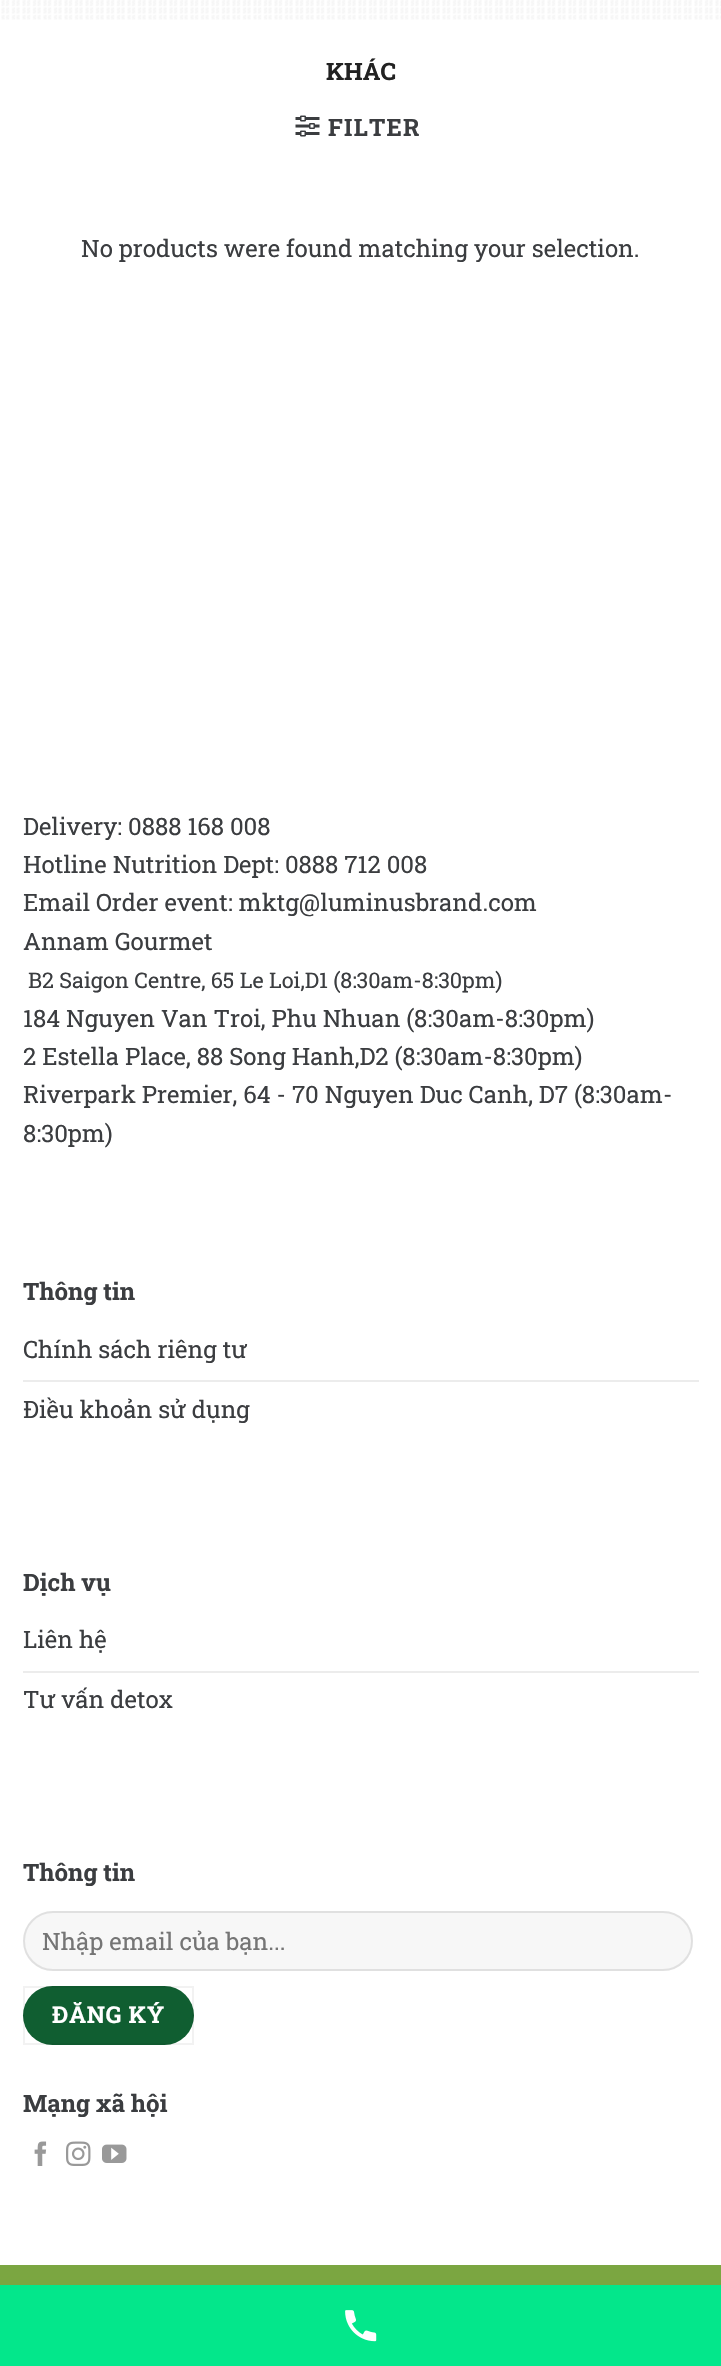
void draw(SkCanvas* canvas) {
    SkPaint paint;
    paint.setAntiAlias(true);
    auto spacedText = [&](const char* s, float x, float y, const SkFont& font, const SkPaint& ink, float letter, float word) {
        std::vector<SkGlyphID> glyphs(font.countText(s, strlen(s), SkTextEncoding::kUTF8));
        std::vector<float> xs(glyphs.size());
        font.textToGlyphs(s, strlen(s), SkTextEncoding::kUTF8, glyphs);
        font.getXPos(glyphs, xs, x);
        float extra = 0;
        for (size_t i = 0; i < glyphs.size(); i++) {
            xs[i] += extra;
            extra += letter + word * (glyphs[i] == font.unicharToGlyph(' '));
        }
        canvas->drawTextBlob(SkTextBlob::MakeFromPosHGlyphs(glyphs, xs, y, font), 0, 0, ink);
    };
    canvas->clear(0xFFFFFFFF);
    canvas->drawImageRect(SkImages::DeferredFromEncodedData(SkData::MakeFromFileName("img1.png")), SkRect::MakeXYWH(1, 0, 720, 20), SkSamplingOptions());
    SkFont font1(fontMgr->matchFamilyStyle("Roboto Slab", SkFontStyle::Bold()), 24);
    font1.setSubpixel(true);
    paint.setColor(0xFF222222);
    canvas->drawString("KHÁC", 326, 80, font1, paint);
    canvas->drawImageRect(SkImages::DeferredFromEncodedData(SkData::MakeFromFileName("img2.png")), SkRect::MakeXYWH(295, 115, 25, 22), SkSamplingOptions());
    paint.setColor(0xFF3B3D40);
    spacedText("FILTER", 328, 136, font1, paint, 1.25f, 0);
    SkFont font2(fontMgr->matchFamilyStyle("Roboto Slab", SkFontStyle::Normal()), 24);
    font2.setSubpixel(true);
    canvas->drawString("No products were found matching your selection.", 81, 257, font2, paint);
    canvas->drawString("Delivery: 0888 168 008", 23, 835, font2, paint);
    canvas->drawString("Hotline Nutrition Dept: 0888 712 008", 23, 873, font2, paint);
    canvas->drawString("Email Order event: mktg@luminusbrand.com", 23, 911, font2, paint);
    canvas->drawString("Annam Gourmet", 23, 950, font2, paint);
    SkFont font3(fontMgr->matchFamilyStyle("Roboto Slab", SkFontStyle::Normal()), 21.6f);
    font3.setSubpixel(true);
    canvas->drawString("B2 Saigon Centre, 65 Le Loi,D1 (8:30am-8:30pm)", 28, 988, font3, paint);
    canvas->drawString("184 Nguyen Van Troi, Phu Nhuan (8:30am-8:30pm)", 23, 1027, font2, paint);
    canvas->drawString("2 Estella Place, 88 Song Hanh,D2 (8:30am-8:30pm)", 23, 1065, font2, paint);
    canvas->drawString("Riverpark Premier, 64 - 70 Nguyen Duc Canh, D7 (8:30am-", 23, 1103, font2, paint);
    canvas->drawString("8:30pm)", 23, 1142, font2, paint);
    canvas->drawString("Thông tin", 23, 1300, font1, paint);
    paint.setColor(0xFFECECEC);
    canvas->drawRect(SkRect::MakeXYWH(23, 1380, 676, 2), paint);
    paint.setColor(0xFF3B3D40);
    canvas->drawString("Chính sách riêng tư", 23, 1358, font2, paint);
    canvas->drawString("Điều khoản sử dụng", 23, 1418, font2, paint);
    canvas->drawString("Dịch vụ", 23, 1591, font1, paint);
    paint.setColor(0xFFECECEC);
    canvas->drawRect(SkRect::MakeXYWH(23, 1671, 676, 2), paint);
    paint.setColor(0xFF3B3D40);
    canvas->drawString("Liên hệ", 23, 1648, font2, paint);
    canvas->drawString("Tư vấn detox", 23, 1708, font2, paint);
    canvas->drawString("Thông tin", 23, 1881, font1, paint);
    paint.setColor(0xFFF7F7F7);
    canvas->drawRoundRect(SkRect::MakeXYWH(23, 1911, 670, 60), 30, 30, paint);
    paint.setStyle(SkPaint::kStroke_Style);
    paint.setStrokeWidth(2);
    paint.setColor(0x17000000);
    canvas->drawRoundRect(SkRect::MakeXYWH(24, 1912, 668, 58), 29, 29, paint);
    paint.setStyle(SkPaint::kFill_Style);
    paint.setColor(0xFF757575);
    canvas->drawString("Nhập email của bạn...", 42, 1950, font2, paint);
    paint.setColor(0xFF105E31);
    canvas->drawRoundRect(SkRect::MakeXYWH(23, 1986, 171, 59), 29.5f, 29.5f, paint);
    paint.setStyle(SkPaint::kStroke_Style);
    paint.setColor(0x0D000000);
    canvas->drawRect(SkRect::MakeXYWH(24, 1987, 169, 57), paint);
    SkFont font4(fontMgr->matchFamilyStyle("Roboto Slab", SkFontStyle::Bold()), 23.25f);
    font4.setSubpixel(true);
    paint.setStyle(SkPaint::kFill_Style);
    paint.setColor(0xFFFFFFFF);
    spacedText("ĐĂNG KÝ", 52, 2023, font4, paint, 0.75f, 0);
    paint.setColor(0xFF3B3D40);
    canvas->drawString("Mạng xã hội", 23, 2112, font1, paint);
    canvas->drawImageRect(SkImages::DeferredFromEncodedData(SkData::MakeFromFileName("img3.png")), SkRect::MakeXYWH(34, 2141, 13, 25), SkSamplingOptions());
    canvas->drawImageRect(SkImages::DeferredFromEncodedData(SkData::MakeFromFileName("img4.png")), SkRect::MakeXYWH(66, 2141, 25, 25), SkSamplingOptions());
    canvas->drawImageRect(SkImages::DeferredFromEncodedData(SkData::MakeFromFileName("img5.png")), SkRect::MakeXYWH(102, 2144, 25, 19), SkSamplingOptions());
    paint.setColor(0xFF7BA641);
    canvas->drawRect(SkRect::MakeXYWH(0, 2265, 721, 20), paint);
    paint.setColor(0xFF03E78B);
    canvas->drawRect(SkRect::MakeXYWH(0, 2285, 721, 81), paint);
    canvas->drawImageRect(SkImages::DeferredFromEncodedData(SkData::MakeFromFileName("img6.png")), SkRect::MakeXYWH(345, 2310, 32, 32), SkSamplingOptions());
}
